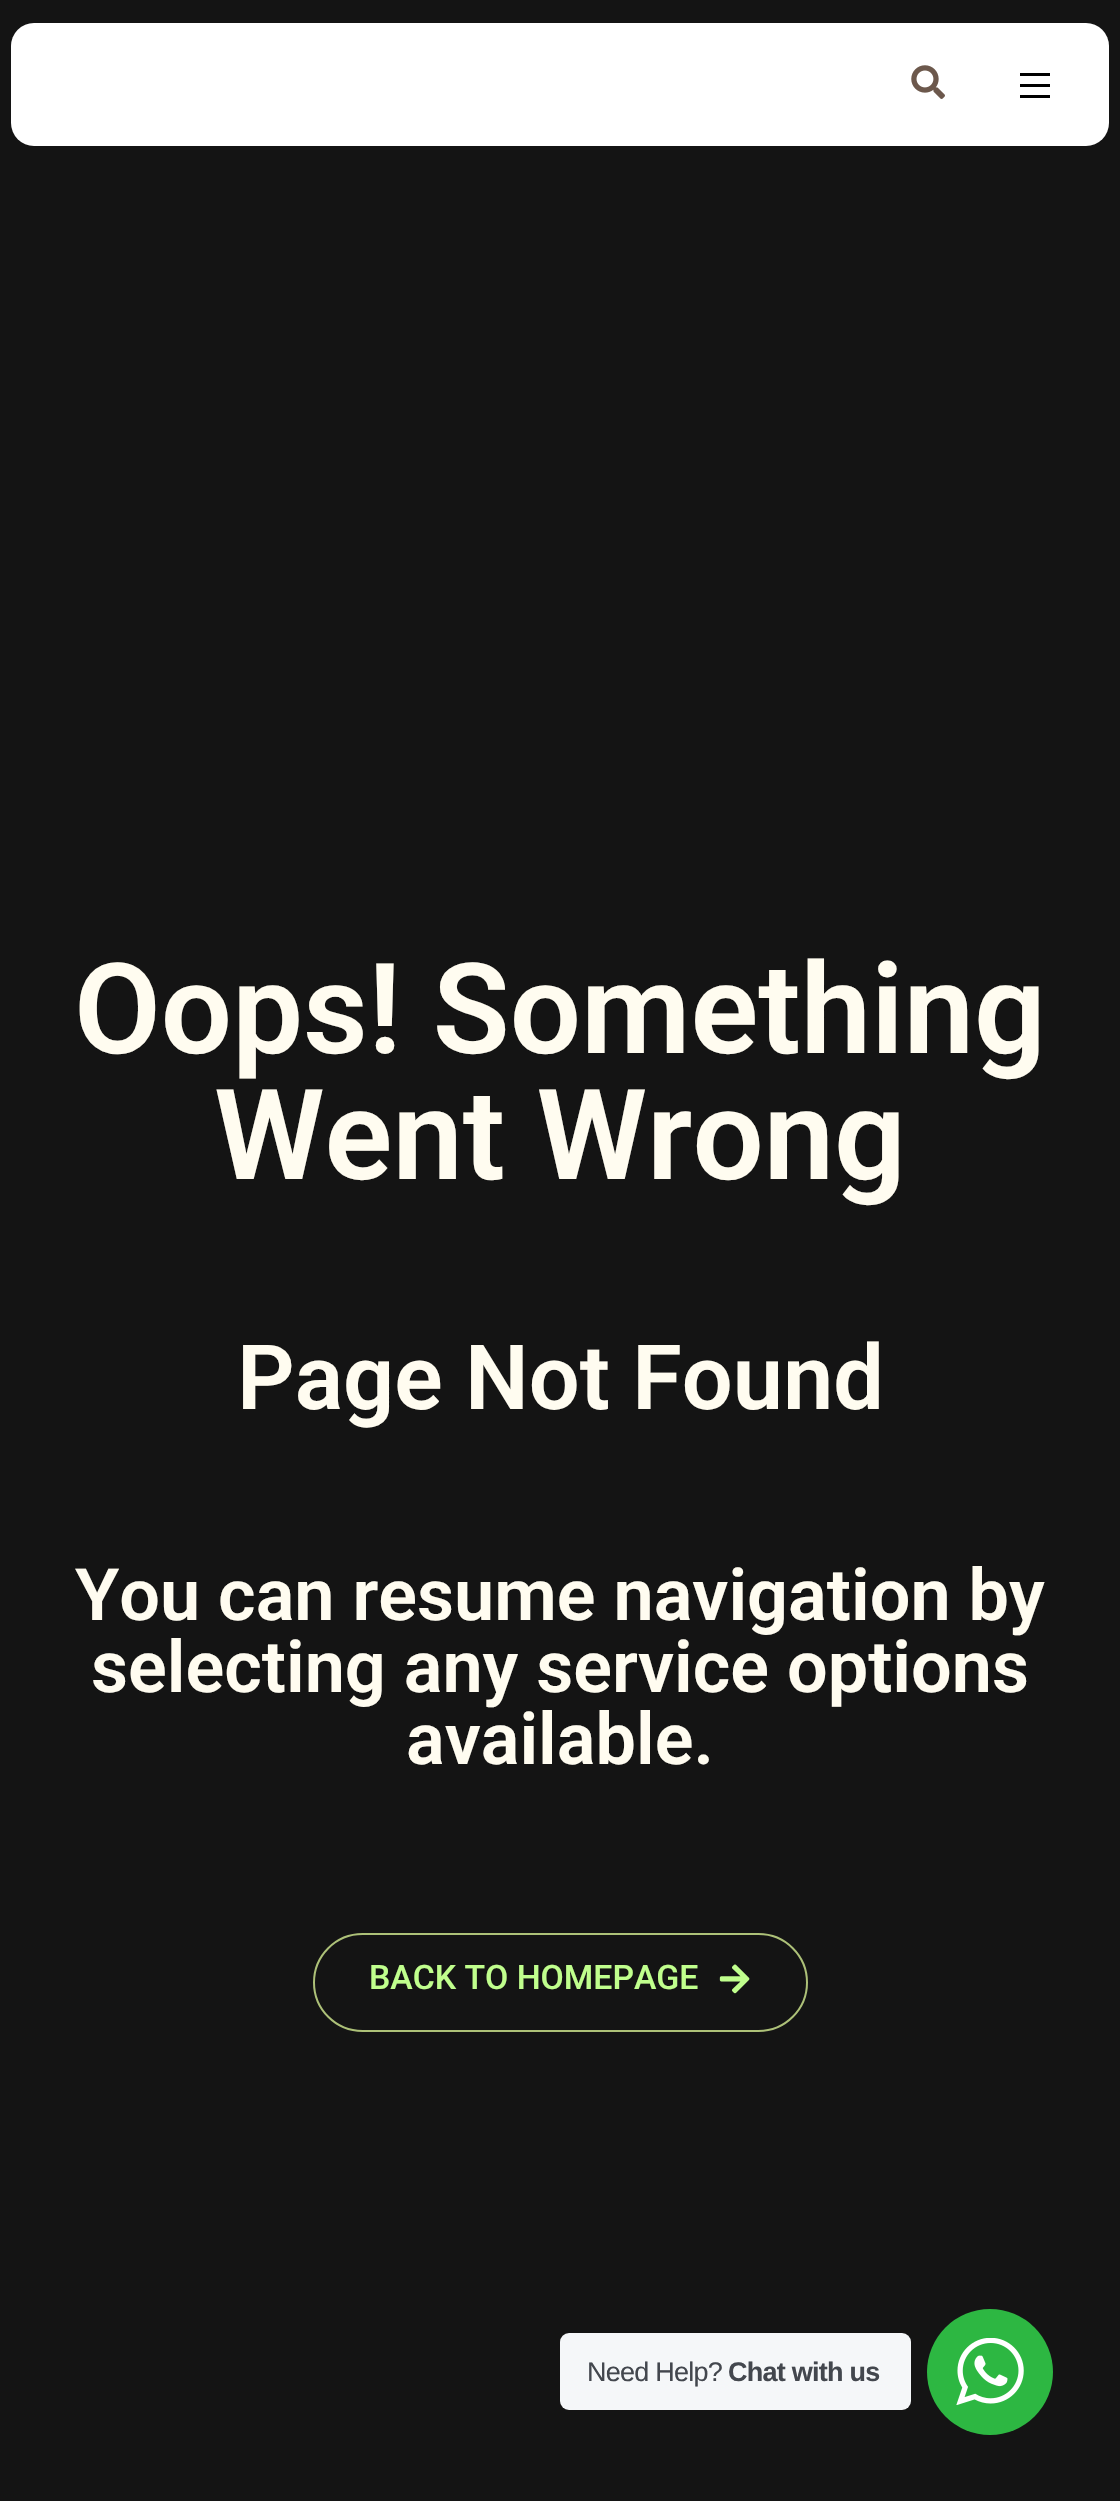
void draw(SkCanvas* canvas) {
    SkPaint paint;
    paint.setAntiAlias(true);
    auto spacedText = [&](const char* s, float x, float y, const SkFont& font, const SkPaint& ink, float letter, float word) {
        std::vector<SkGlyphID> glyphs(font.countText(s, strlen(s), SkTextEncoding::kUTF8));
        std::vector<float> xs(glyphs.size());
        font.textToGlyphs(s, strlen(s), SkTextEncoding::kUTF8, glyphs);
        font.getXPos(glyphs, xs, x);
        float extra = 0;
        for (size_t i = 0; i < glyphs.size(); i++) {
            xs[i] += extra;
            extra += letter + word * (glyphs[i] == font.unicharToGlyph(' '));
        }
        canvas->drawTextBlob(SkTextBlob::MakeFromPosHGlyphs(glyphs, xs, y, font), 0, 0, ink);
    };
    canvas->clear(0xFF141414);
    paint.setColor(0xFFFFFFFF);
    canvas->drawRoundRect(SkRect::MakeXYWH(11, 23, 1098, 123), 23, 23, paint);
    canvas->drawImageRect(SkImages::DeferredFromEncodedData(SkData::MakeFromFileName("img1.png")), SkRect::MakeXYWH(911, 65, 34, 34), SkSamplingOptions());
    paint.setColor(0xFF000000);
    canvas->drawRect(SkRect::MakeXYWH(1020, 73, 30, 3), paint);
    canvas->drawRect(SkRect::MakeXYWH(1020, 84, 30, 3), paint);
    canvas->drawRect(SkRect::MakeXYWH(1020, 95, 30, 3), paint);
    SkFont font1(fontMgr->matchFamilyStyle("Roboto", SkFontStyle(600, SkFontStyle::kNormal_Width, SkFontStyle::kUpright_Slant)), 126);
    font1.setSubpixel(true);
    paint.setColor(0xFFFFFCF0);
    canvas->drawString("Oops! Something", 74, 1053, font1, paint);
    canvas->drawString("Went Wrong", 214, 1179, font1, paint);
    SkFont font2(fontMgr->matchFamilyStyle("Roboto", SkFontStyle(600, SkFontStyle::kNormal_Width, SkFontStyle::kUpright_Slant)), 90);
    font2.setSubpixel(true);
    canvas->drawString("Page Not Found", 237, 1409, font2, paint);
    SkFont font3(fontMgr->matchFamilyStyle("Roboto", SkFontStyle(600, SkFontStyle::kNormal_Width, SkFontStyle::kUpright_Slant)), 72);
    font3.setSubpixel(true);
    canvas->drawString("You can resume navigation by", 75, 1620, font3, paint);
    canvas->drawString("selecting any service options", 91, 1692, font3, paint);
    canvas->drawString("available.", 406, 1764, font3, paint);
    paint.setStyle(SkPaint::kStroke_Style);
    paint.setStrokeWidth(2);
    paint.setColor(0xFFADC178);
    canvas->drawRoundRect(SkRect::MakeXYWH(314, 1934, 493, 97), 48.5f, 48.5f, paint);
    SkFont font4(fontMgr->matchFamilyStyle("Roboto", SkFontStyle(500, SkFontStyle::kNormal_Width, SkFontStyle::kUpright_Slant)), 33.75f);
    font4.setSubpixel(true);
    paint.setStyle(SkPaint::kFill_Style);
    paint.setColor(0xFFC0FF8D);
    canvas->drawString("BACK TO HOMEPAGE", 369, 1989, font4, paint);
    canvas->drawImageRect(SkImages::DeferredFromEncodedData(SkData::MakeFromFileName("img2.png")), SkRect::MakeXYWH(719, 1964, 31, 30), SkSamplingOptions());
    paint.setColor(0xFFF5F7F9);
    canvas->drawRoundRect(SkRect::MakeXYWH(560, 2333, 351, 77), 9, 9, paint);
    SkFont font5(fontMgr->matchFamilyStyle("Liberation Sans", SkFontStyle::Normal()), 27);
    font5.setSubpixel(true);
    paint.setColor(0xFF43474E);
    spacedText("Need Help?", 587, 2381, font5, paint, -0.75f, 0);
    SkFont font6(fontMgr->matchFamilyStyle("Liberation Sans", SkFontStyle::Bold()), 27);
    font6.setSubpixel(true);
    spacedText("Chat with us", 728, 2381, font6, paint, -0.75f, 0);
    paint.setColor(0xFF2DB742);
    canvas->drawCircle(990, 2372, 63, paint);
    canvas->drawImageRect(SkImages::DeferredFromEncodedData(SkData::MakeFromFileName("img3.png")), SkRect::MakeXYWH(956, 2338, 68, 67), SkSamplingOptions());
}
